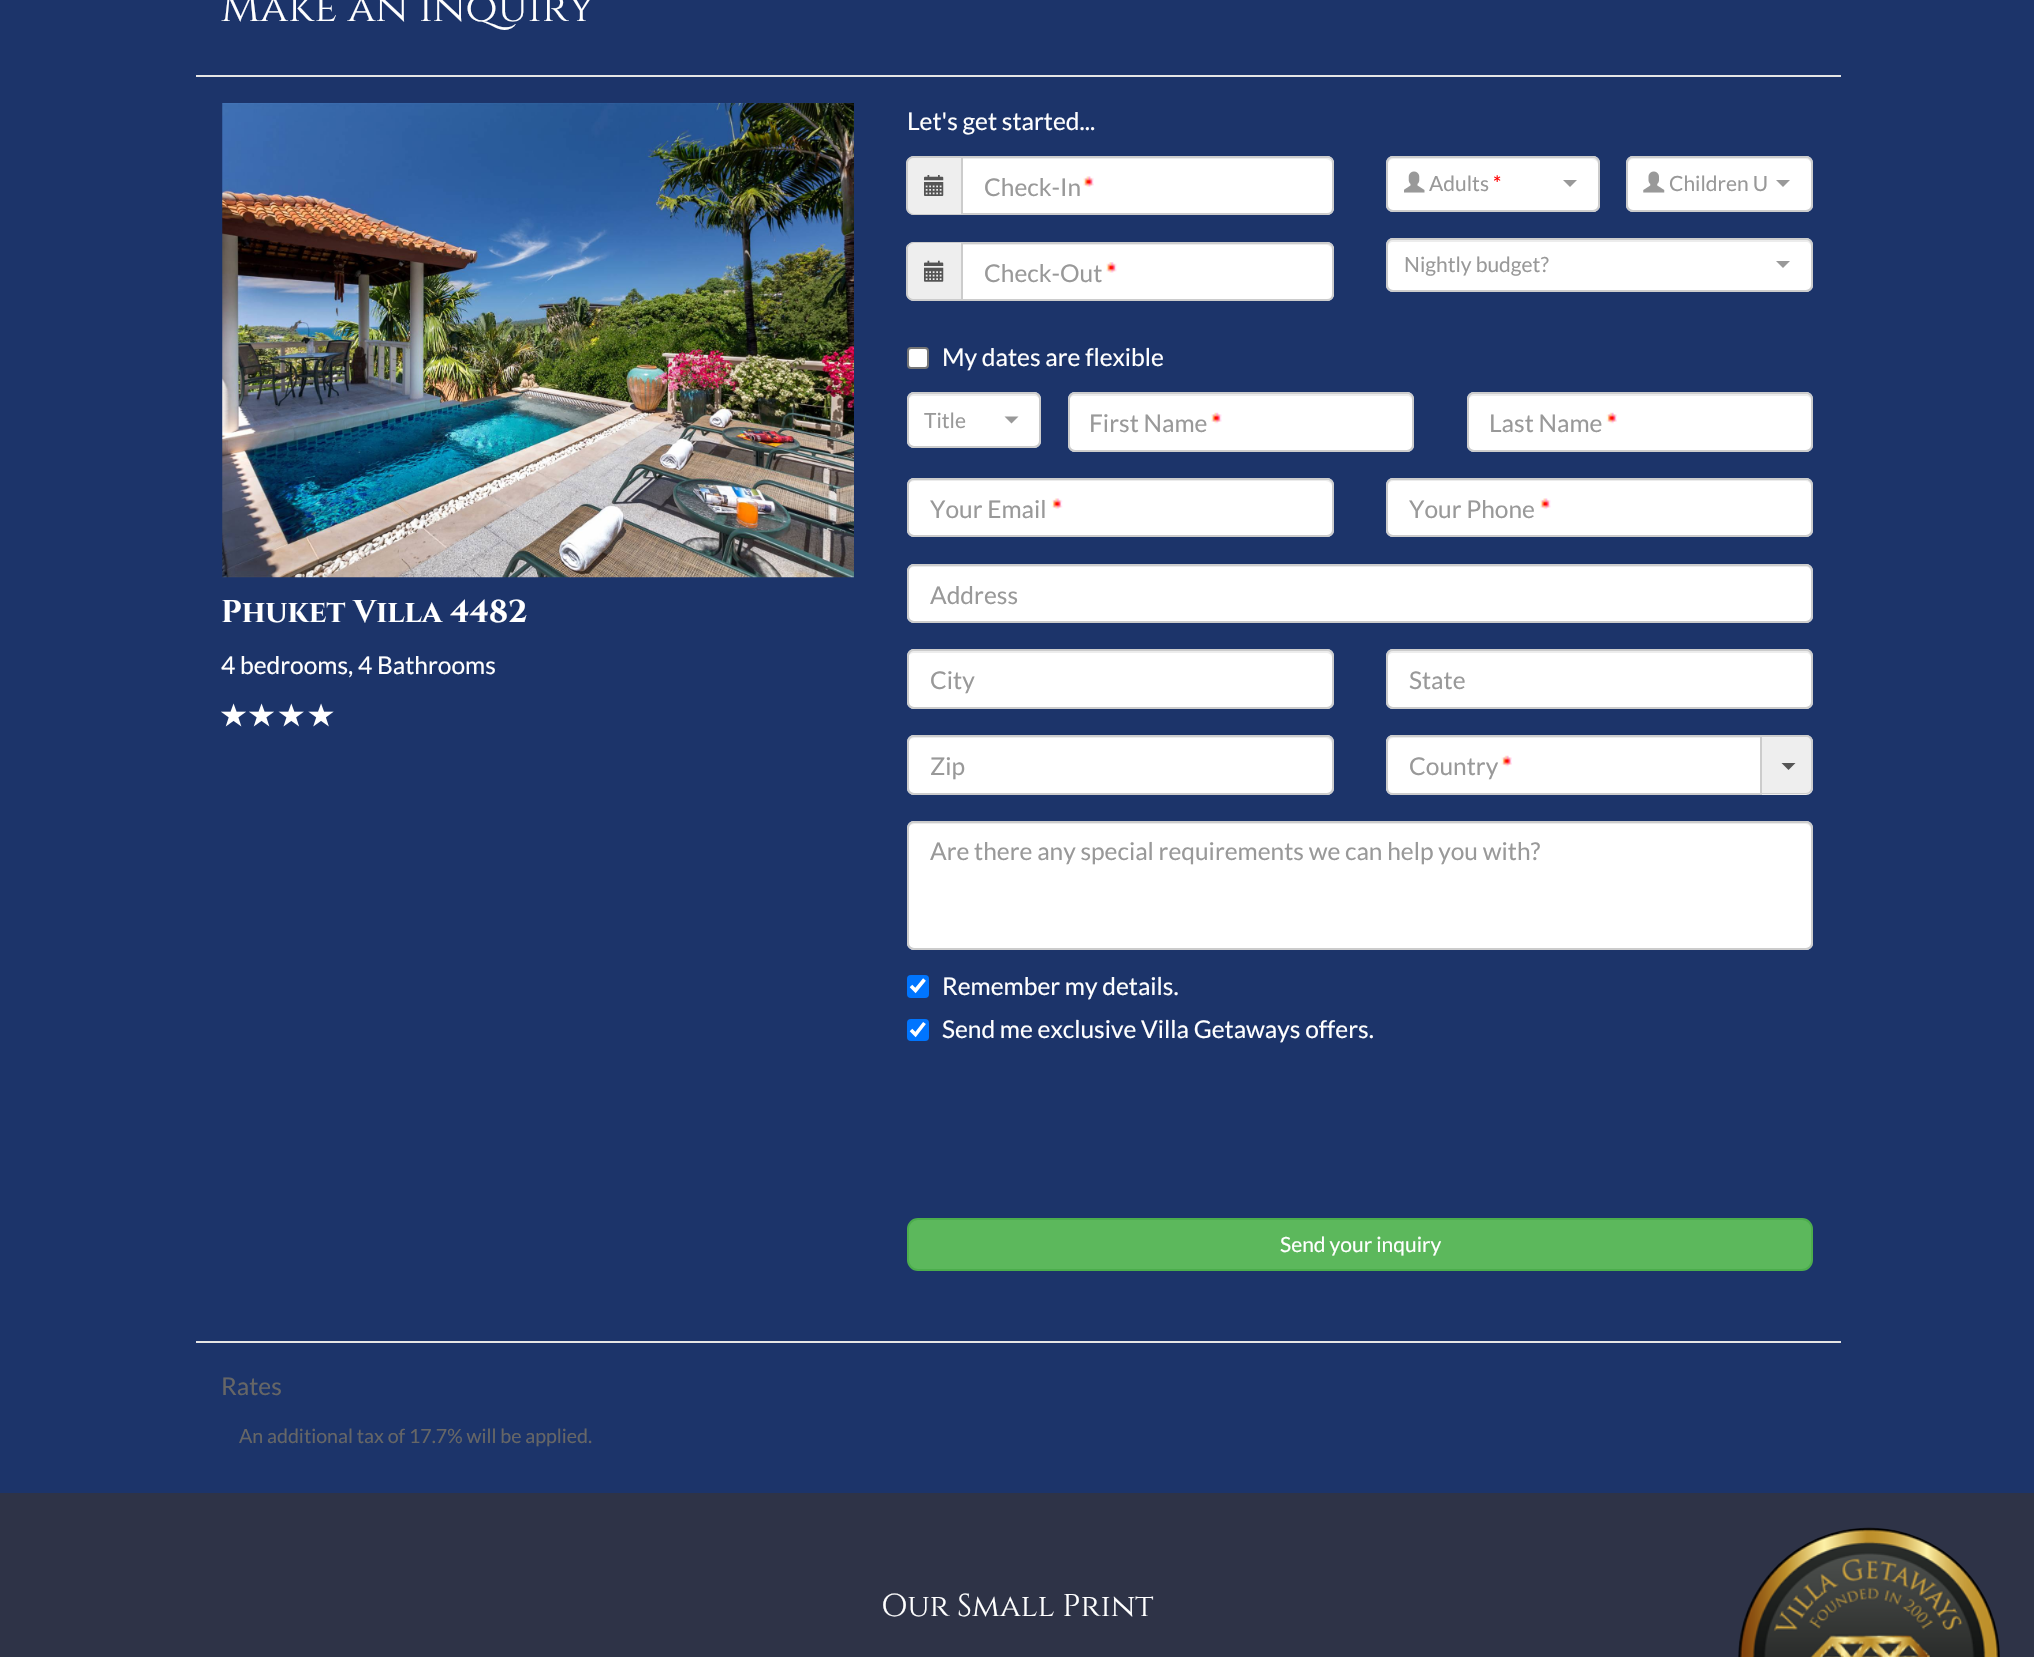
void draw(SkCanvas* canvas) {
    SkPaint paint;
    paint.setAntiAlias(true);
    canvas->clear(0xFF1C346A);
    paint.setColor(0xFFE5E5E5);
    canvas->drawRect(SkRect::MakeXYWH(196, 75, 1645, 2), paint);
    SkFont font1(fontMgr->matchFamilyStyle("Cinzel", SkFontStyle::Normal()), 42);
    font1.setSubpixel(true);
    paint.setColor(0xFFFFFFFF);
    canvas->drawString("Make an inquiry", 221, 21, font1, paint);
    canvas->drawImageRect(SkImages::DeferredFromEncodedData(SkData::MakeFromFileName("img1.png")), SkRect::MakeXYWH(222, 103, 632, 475), SkSamplingOptions());
    SkFont font2(fontMgr->matchFamilyStyle("Cinzel", SkFontStyle::Bold()), 31.5f);
    font2.setSubpixel(true);
    canvas->drawString("Phuket Villa 4482", 221, 622, font2, paint);
    SkFont font3(fontMgr->matchFamilyStyle("Lato", SkFontStyle::Normal()), 24.5f);
    font3.setSubpixel(true);
    canvas->drawString("4 bedrooms, 4 Bathrooms", 221, 674, font3, paint);
    canvas->drawImageRect(SkImages::DeferredFromEncodedData(SkData::MakeFromFileName("img2.png")), SkRect::MakeXYWH(221, 703, 25, 24), SkSamplingOptions());
    canvas->drawImageRect(SkImages::DeferredFromEncodedData(SkData::MakeFromFileName("img2.png")), SkRect::MakeXYWH(249, 703, 25, 24), SkSamplingOptions());
    canvas->drawImageRect(SkImages::DeferredFromEncodedData(SkData::MakeFromFileName("img3.png")), SkRect::MakeXYWH(278, 703, 26, 24), SkSamplingOptions());
    canvas->drawImageRect(SkImages::DeferredFromEncodedData(SkData::MakeFromFileName("img4.png")), SkRect::MakeXYWH(308, 703, 26, 24), SkSamplingOptions());
    canvas->drawString("Let's get started...", 907, 130, font3, paint);
    paint.setColor(0xFFEEEEEE);
    canvas->drawPath(SkPathBuilder().moveTo(914, 156).lineTo(961, 156).lineTo(961, 215).lineTo(914, 215).cubicTo(910, 215, 907, 212, 907, 208).lineTo(907, 163).cubicTo(907, 159, 910, 156, 914, 156).close().detach(), paint);
    paint.setColor(0xFFCCCCCC);
    canvas->drawPath(SkPathBuilder(SkPathFillType::kEvenOdd).moveTo(914, 156).lineTo(961, 156).lineTo(961, 215).lineTo(914, 215).cubicTo(910, 215, 906, 212, 906, 208).lineTo(906, 163).cubicTo(906, 159, 910, 156, 914, 156).close().moveTo(914, 158).lineTo(961, 158).lineTo(961, 214).lineTo(914, 214).cubicTo(911, 214, 908, 211, 908, 208).lineTo(908, 163).cubicTo(908, 160, 911, 158, 914, 158).close().detach(), paint);
    canvas->drawImageRect(SkImages::DeferredFromEncodedData(SkData::MakeFromFileName("img5.png")), SkRect::MakeXYWH(924, 175, 20, 21), SkSamplingOptions());
    paint.setColor(0xFFFFFFFF);
    canvas->drawPath(SkPathBuilder().moveTo(961, 156).lineTo(1327, 156).cubicTo(1331, 156, 1334, 159, 1334, 163).lineTo(1334, 208).cubicTo(1334, 212, 1331, 215, 1327, 215).lineTo(961, 215).close().detach(), paint);
    canvas->drawImageRect(SkImages::DeferredFromEncodedData(SkData::MakeFromFileName("img6.png")), SkRect::MakeXYWH(1083, 176, 11, 11), SkSamplingOptions());
    paint.setColor(0xFFECECEC);
    canvas->drawPath(SkPathBuilder().moveTo(963, 158).lineTo(963, 159).lineTo(1326, 159).cubicTo(1329, 159, 1332, 162, 1332, 164).cubicTo(1332, 161, 1330, 158, 1327, 158).close().detach(), paint);
    paint.setStyle(SkPaint::kStroke_Style);
    paint.setStrokeWidth(2);
    paint.setColor(0xFFCCCCCC);
    canvas->drawPath(SkPathBuilder().moveTo(962, 157).lineTo(1327, 157).cubicTo(1330.5f, 157, 1333, 159.5f, 1333, 163).lineTo(1333, 208).cubicTo(1333, 211.5f, 1330.5f, 214, 1327, 214).lineTo(962, 214).close().detach(), paint);
    paint.setStyle(SkPaint::kFill_Style);
    paint.setColor(0xFF999999);
    canvas->drawString("Check-In", 984, 196, font3, paint);
    paint.setColor(0xFFEEEEEE);
    canvas->drawPath(SkPathBuilder().moveTo(914, 242).lineTo(961, 242).lineTo(961, 301).lineTo(914, 301).cubicTo(910, 301, 907, 298, 907, 294).lineTo(907, 249).cubicTo(907, 245, 910, 242, 914, 242).close().detach(), paint);
    paint.setColor(0xFFCCCCCC);
    canvas->drawPath(SkPathBuilder(SkPathFillType::kEvenOdd).moveTo(914, 242).lineTo(961, 242).lineTo(961, 301).lineTo(914, 301).cubicTo(910, 301, 906, 298, 906, 294).lineTo(906, 248).cubicTo(906, 245, 910, 242, 914, 242).close().moveTo(914, 243).lineTo(961, 243).lineTo(961, 299).lineTo(914, 299).cubicTo(911, 299, 908, 297, 908, 294).lineTo(908, 248).cubicTo(908, 246, 911, 243, 914, 243).close().detach(), paint);
    canvas->drawImageRect(SkImages::DeferredFromEncodedData(SkData::MakeFromFileName("img7.png")), SkRect::MakeXYWH(924, 260, 20, 22), SkSamplingOptions());
    paint.setColor(0xFFFFFFFF);
    canvas->drawPath(SkPathBuilder().moveTo(961, 242).lineTo(1327, 242).cubicTo(1331, 242, 1334, 245, 1334, 249).lineTo(1334, 294).cubicTo(1334, 298, 1331, 301, 1327, 301).lineTo(961, 301).close().detach(), paint);
    canvas->drawImageRect(SkImages::DeferredFromEncodedData(SkData::MakeFromFileName("img8.png")), SkRect::MakeXYWH(1106, 262, 11, 11), SkSamplingOptions());
    paint.setColor(0xFFECECEC);
    canvas->drawPath(SkPathBuilder().moveTo(963, 243).lineTo(963, 245).lineTo(1326, 245).cubicTo(1329, 245, 1332, 247, 1332, 250).cubicTo(1332, 247, 1331, 243, 1327, 243).close().detach(), paint);
    paint.setStyle(SkPaint::kStroke_Style);
    paint.setColor(0xFFCCCCCC);
    canvas->drawPath(SkPathBuilder().moveTo(962, 243).lineTo(1327, 243).cubicTo(1330.5f, 243, 1333, 245.5f, 1333, 249).lineTo(1333, 294).cubicTo(1333, 297.5f, 1330.5f, 300, 1327, 300).lineTo(962, 300).close().detach(), paint);
    paint.setStyle(SkPaint::kFill_Style);
    paint.setColor(0xFF999999);
    canvas->drawString("Check-Out", 984, 282, font3, paint);
    paint.setColor(0xFFFFFFFF);
    canvas->drawRoundRect(SkRect::MakeXYWH(908, 348, 20, 20), 3, 3, paint);
    paint.setStyle(SkPaint::kStroke_Style);
    paint.setColor(0xFF767676);
    canvas->drawRoundRect(SkRect::MakeXYWH(908, 348, 20, 20), 3, 3, paint);
    paint.setStyle(SkPaint::kFill_Style);
    paint.setColor(0xFFFFFFFF);
    canvas->drawString("My dates are flexible", 942, 366, font3, paint);
    canvas->drawRoundRect(SkRect::MakeXYWH(1386, 156, 214, 56), 7, 7, paint);
    paint.setColor(0xFFECECEC);
    canvas->drawPath(SkPathBuilder().moveTo(1393, 159).lineTo(1592, 159).cubicTo(1595, 159, 1598, 162, 1598, 164).lineTo(1598, 163).cubicTo(1598, 160, 1596, 158, 1593, 158).lineTo(1393, 158).cubicTo(1390, 158, 1388, 160, 1388, 163).lineTo(1388, 164).cubicTo(1388, 162, 1390, 159, 1393, 159).close().detach(), paint);
    paint.setStyle(SkPaint::kStroke_Style);
    paint.setColor(0xFFCCCCCC);
    canvas->drawRoundRect(SkRect::MakeXYWH(1387, 157, 212, 54), 6, 6, paint);
    canvas->drawImageRect(SkImages::DeferredFromEncodedData(SkData::MakeFromFileName("img9.png")), SkRect::MakeXYWH(1404, 171, 21, 22), SkSamplingOptions());
    SkFont font4(fontMgr->matchFamilyStyle("Lato", SkFontStyle::Normal()), 21);
    font4.setSubpixel(true);
    paint.setStyle(SkPaint::kFill_Style);
    paint.setColor(0xFF999999);
    canvas->drawString("Adults", 1429, 191, font4, paint);
    paint.setColor(0xFFFF0000);
    canvas->drawString("*", 1493, 191, font4, paint);
    paint.setColor(0xFF999999);
    canvas->drawPath(SkPathBuilder().moveTo(1563, 180).lineTo(1577, 180).lineTo(1570, 187).close().detach(), paint);
    paint.setColor(0xFFFFFFFF);
    canvas->drawRoundRect(SkRect::MakeXYWH(1626, 156, 187, 56), 7, 7, paint);
    paint.setColor(0xFFECECEC);
    canvas->drawPath(SkPathBuilder().moveTo(1633, 159).lineTo(1806, 159).cubicTo(1809, 159, 1811, 162, 1811, 164).cubicTo(1811, 161, 1810, 159, 1807, 158).lineTo(1632, 158).cubicTo(1629, 159, 1628, 161, 1628, 164).cubicTo(1628, 162, 1630, 159, 1633, 159).close().detach(), paint);
    paint.setStyle(SkPaint::kStroke_Style);
    paint.setColor(0xFFCCCCCC);
    canvas->drawRoundRect(SkRect::MakeXYWH(1627, 157, 185, 54), 6, 6, paint);
    canvas->drawImageRect(SkImages::DeferredFromEncodedData(SkData::MakeFromFileName("img10.png")), SkRect::MakeXYWH(1643, 171, 22, 22), SkSamplingOptions());
    paint.setStyle(SkPaint::kFill_Style);
    paint.setColor(0xFF999999);
    canvas->drawString("Children U", 1669, 191, font4, paint);
    canvas->drawPath(SkPathBuilder().moveTo(1776, 180).lineTo(1790, 180).lineTo(1783, 187).close().detach(), paint);
    paint.setColor(0xFFFFFFFF);
    canvas->drawRoundRect(SkRect::MakeXYWH(1386, 238, 427, 54), 7, 7, paint);
    paint.setColor(0xFFECECEC);
    canvas->drawPath(SkPathBuilder().moveTo(1393, 242).lineTo(1806, 242).cubicTo(1809, 242, 1811, 244, 1811, 247).lineTo(1811, 245).cubicTo(1811, 242, 1809, 240, 1806, 240).lineTo(1393, 240).cubicTo(1390, 240, 1388, 242, 1388, 245).lineTo(1388, 247).cubicTo(1388, 244, 1390, 242, 1393, 242).close().detach(), paint);
    paint.setStyle(SkPaint::kStroke_Style);
    paint.setColor(0xFFCCCCCC);
    canvas->drawRoundRect(SkRect::MakeXYWH(1387, 239, 425, 52), 6, 6, paint);
    paint.setStyle(SkPaint::kFill_Style);
    paint.setColor(0xFF999999);
    canvas->drawString("Nightly budget?", 1404, 272, font4, paint);
    canvas->drawPath(SkPathBuilder().moveTo(1776, 261).lineTo(1790, 261).lineTo(1783, 268).close().detach(), paint);
    paint.setColor(0xFFFFFFFF);
    canvas->drawRoundRect(SkRect::MakeXYWH(907, 392, 134, 56), 7, 7, paint);
    paint.setColor(0xFFECECEC);
    canvas->drawPath(SkPathBuilder().moveTo(914, 396).lineTo(1034, 396).cubicTo(1037, 396, 1040, 398, 1040, 401).lineTo(1040, 399).cubicTo(1040, 396, 1038, 394, 1035, 394).lineTo(913, 394).cubicTo(910, 394, 908, 396, 908, 399).lineTo(908, 401).cubicTo(908, 398, 911, 396, 914, 396).close().detach(), paint);
    paint.setStyle(SkPaint::kStroke_Style);
    paint.setColor(0xFFCCCCCC);
    canvas->drawRoundRect(SkRect::MakeXYWH(908, 393, 132, 54), 6, 6, paint);
    paint.setStyle(SkPaint::kFill_Style);
    paint.setColor(0xFF999999);
    canvas->drawString("Title", 924, 428, font4, paint);
    canvas->drawPath(SkPathBuilder().moveTo(1004.5f, 416.5f).lineTo(1018.5f, 416.5f).lineTo(1011.5f, 423.5f).close().detach(), paint);
    paint.setColor(0xFFFFFFFF);
    canvas->drawRoundRect(SkRect::MakeXYWH(1068, 392, 346, 60), 7, 7, paint);
    canvas->drawImageRect(SkImages::DeferredFromEncodedData(SkData::MakeFromFileName("img11.png")), SkRect::MakeXYWH(1211, 412, 11, 12), SkSamplingOptions());
    paint.setColor(0xFFECECEC);
    canvas->drawPath(SkPathBuilder().moveTo(1074, 396).lineTo(1407, 396).cubicTo(1410, 396, 1412, 398, 1412, 401).cubicTo(1412, 398, 1411, 394, 1407, 394).lineTo(1074, 394).cubicTo(1070, 394, 1069, 398, 1069, 401).cubicTo(1069, 398, 1072, 396, 1074, 396).close().detach(), paint);
    paint.setStyle(SkPaint::kStroke_Style);
    paint.setColor(0xFFCCCCCC);
    canvas->drawRoundRect(SkRect::MakeXYWH(1069, 393, 344, 58), 6, 6, paint);
    paint.setStyle(SkPaint::kFill_Style);
    paint.setColor(0xFF999999);
    canvas->drawString("First Name", 1089, 432, font3, paint);
    paint.setColor(0xFFFFFFFF);
    canvas->drawRoundRect(SkRect::MakeXYWH(1467, 392, 346, 60), 7, 7, paint);
    canvas->drawImageRect(SkImages::DeferredFromEncodedData(SkData::MakeFromFileName("img12.png")), SkRect::MakeXYWH(1606, 412, 11, 12), SkSamplingOptions());
    paint.setColor(0xFFECECEC);
    canvas->drawPath(SkPathBuilder().moveTo(1474, 396).lineTo(1806, 396).cubicTo(1809, 396, 1811, 398, 1811, 401).cubicTo(1811, 398, 1810, 394, 1806, 394).lineTo(1473, 394).cubicTo(1469, 394, 1468, 398, 1468, 401).cubicTo(1468, 398, 1471, 396, 1474, 396).close().detach(), paint);
    paint.setStyle(SkPaint::kStroke_Style);
    paint.setColor(0xFFCCCCCC);
    canvas->drawRoundRect(SkRect::MakeXYWH(1468, 393, 344, 58), 6, 6, paint);
    paint.setStyle(SkPaint::kFill_Style);
    paint.setColor(0xFF999999);
    canvas->drawString("Last Name", 1489, 432, font3, paint);
    paint.setColor(0xFFFFFFFF);
    canvas->drawRoundRect(SkRect::MakeXYWH(907, 478, 427, 59), 7, 7, paint);
    canvas->drawImageRect(SkImages::DeferredFromEncodedData(SkData::MakeFromFileName("img13.png")), SkRect::MakeXYWH(1051, 498, 12, 11), SkSamplingOptions());
    paint.setColor(0xFFECECEC);
    canvas->drawPath(SkPathBuilder().moveTo(914, 481).lineTo(1326, 481).cubicTo(1329, 481, 1332, 484, 1332, 486).cubicTo(1332, 483, 1330, 480, 1327, 480).lineTo(913, 480).cubicTo(910, 480, 908, 483, 908, 486).cubicTo(908, 484, 911, 481, 914, 481).close().detach(), paint);
    paint.setStyle(SkPaint::kStroke_Style);
    paint.setColor(0xFFCCCCCC);
    canvas->drawRoundRect(SkRect::MakeXYWH(908, 479, 425, 57), 6, 6, paint);
    paint.setStyle(SkPaint::kFill_Style);
    paint.setColor(0xFF999999);
    canvas->drawString("Your Email", 930, 518, font3, paint);
    paint.setColor(0xFFFFFFFF);
    canvas->drawRoundRect(SkRect::MakeXYWH(1386, 478, 427, 59), 7, 7, paint);
    canvas->drawImageRect(SkImages::DeferredFromEncodedData(SkData::MakeFromFileName("img14.png")), SkRect::MakeXYWH(1540, 498, 11, 11), SkSamplingOptions());
    paint.setColor(0xFFECECEC);
    canvas->drawPath(SkPathBuilder().moveTo(1393, 481).lineTo(1806, 481).cubicTo(1809, 481, 1811, 484, 1811, 486).cubicTo(1811, 483, 1809, 480, 1806, 480).lineTo(1393, 480).cubicTo(1390, 480, 1388, 483, 1388, 486).cubicTo(1388, 484, 1390, 481, 1393, 481).close().detach(), paint);
    paint.setStyle(SkPaint::kStroke_Style);
    paint.setColor(0xFFCCCCCC);
    canvas->drawRoundRect(SkRect::MakeXYWH(1387, 479, 425, 57), 6, 6, paint);
    paint.setStyle(SkPaint::kFill_Style);
    paint.setColor(0xFF999999);
    canvas->drawString("Your Phone", 1409, 518, font3, paint);
    paint.setColor(0xFFFFFFFF);
    canvas->drawRoundRect(SkRect::MakeXYWH(907, 564, 906, 59), 7, 7, paint);
    paint.setColor(0xFFECECEC);
    canvas->drawPath(SkPathBuilder().moveTo(914, 567).lineTo(1806, 567).cubicTo(1809, 567, 1811, 569, 1811, 572).lineTo(1811, 570).cubicTo(1811, 567, 1809, 565, 1806, 565).lineTo(913, 565).cubicTo(910, 565, 908, 567, 908, 570).lineTo(908, 572).cubicTo(908, 569, 911, 567, 914, 567).close().detach(), paint);
    paint.setStyle(SkPaint::kStroke_Style);
    paint.setColor(0xFFCCCCCC);
    canvas->drawRoundRect(SkRect::MakeXYWH(908, 565, 904, 57), 6, 6, paint);
    paint.setStyle(SkPaint::kFill_Style);
    paint.setColor(0xFF999999);
    canvas->drawString("Address", 930, 604, font3, paint);
    paint.setColor(0xFFFFFFFF);
    canvas->drawRoundRect(SkRect::MakeXYWH(907, 649, 427, 60), 7, 7, paint);
    paint.setColor(0xFFECECEC);
    canvas->drawPath(SkPathBuilder().moveTo(914, 653).lineTo(1326, 653).cubicTo(1329, 653, 1332, 655, 1332, 658).lineTo(1332, 656).cubicTo(1332, 653, 1330, 651, 1327, 651).lineTo(913, 651).cubicTo(910, 651, 908, 653, 908, 656).lineTo(908, 658).cubicTo(908, 655, 911, 653, 914, 653).close().detach(), paint);
    paint.setStyle(SkPaint::kStroke_Style);
    paint.setColor(0xFFCCCCCC);
    canvas->drawRoundRect(SkRect::MakeXYWH(908, 650, 425, 58), 6, 6, paint);
    paint.setStyle(SkPaint::kFill_Style);
    paint.setColor(0xFF999999);
    canvas->drawString("City", 930, 689, font3, paint);
    paint.setColor(0xFFFFFFFF);
    canvas->drawRoundRect(SkRect::MakeXYWH(1386, 649, 427, 60), 7, 7, paint);
    paint.setColor(0xFFECECEC);
    canvas->drawPath(SkPathBuilder().moveTo(1393, 653).lineTo(1806, 653).cubicTo(1809, 653, 1811, 655, 1811, 658).lineTo(1811, 656).cubicTo(1811, 653, 1809, 651, 1806, 651).lineTo(1393, 651).cubicTo(1390, 651, 1388, 653, 1388, 656).lineTo(1388, 658).cubicTo(1388, 655, 1390, 653, 1393, 653).close().detach(), paint);
    paint.setStyle(SkPaint::kStroke_Style);
    paint.setColor(0xFFCCCCCC);
    canvas->drawRoundRect(SkRect::MakeXYWH(1387, 650, 425, 58), 6, 6, paint);
    paint.setStyle(SkPaint::kFill_Style);
    paint.setColor(0xFF999999);
    canvas->drawString("State", 1409, 689, font3, paint);
    paint.setColor(0xFFFFFFFF);
    canvas->drawRoundRect(SkRect::MakeXYWH(907, 735, 427, 60), 7, 7, paint);
    paint.setColor(0xFFECECEC);
    canvas->drawPath(SkPathBuilder().moveTo(914, 738).lineTo(1326, 738).cubicTo(1329, 738, 1332, 741, 1332, 744).lineTo(1332, 742).cubicTo(1332, 739, 1330, 737, 1327, 737).lineTo(913, 737).cubicTo(910, 737, 908, 739, 908, 742).lineTo(908, 744).cubicTo(908, 741, 911, 738, 914, 738).close().detach(), paint);
    paint.setStyle(SkPaint::kStroke_Style);
    paint.setColor(0xFFCCCCCC);
    canvas->drawRoundRect(SkRect::MakeXYWH(908, 736, 425, 58), 6, 6, paint);
    paint.setStyle(SkPaint::kFill_Style);
    paint.setColor(0xFF999999);
    canvas->drawString("Zip", 930, 775, font3, paint);
    paint.setColor(0xFFFFFFFF);
    canvas->drawPath(SkPathBuilder().moveTo(1393, 735).lineTo(1762, 735).lineTo(1762, 795).lineTo(1393, 795).cubicTo(1389, 795, 1386, 792, 1386, 788).lineTo(1386, 742).cubicTo(1386, 738, 1389, 735, 1393, 735).close().detach(), paint);
    canvas->drawImageRect(SkImages::DeferredFromEncodedData(SkData::MakeFromFileName("img12.png")), SkRect::MakeXYWH(1501, 755, 11, 12), SkSamplingOptions());
    paint.setColor(0xFFECECEC);
    canvas->drawPath(SkPathBuilder().moveTo(1393, 738).lineTo(1760, 738).lineTo(1760, 793).lineTo(1761, 793).lineTo(1761, 737).lineTo(1393, 737).cubicTo(1390, 737, 1388, 739, 1388, 742).lineTo(1388, 744).cubicTo(1388, 741, 1390, 738, 1393, 738).close().detach(), paint);
    paint.setStyle(SkPaint::kStroke_Style);
    paint.setColor(0xFFCCCCCC);
    canvas->drawPath(SkPathBuilder().moveTo(1393, 736).lineTo(1761, 736).lineTo(1761, 794).lineTo(1393, 794).cubicTo(1389.5f, 794, 1387, 791.5f, 1387, 788).lineTo(1387, 742).cubicTo(1387, 738.5f, 1389.5f, 736, 1393, 736).close().detach(), paint);
    paint.setStyle(SkPaint::kFill_Style);
    paint.setColor(0xFF999999);
    canvas->drawString("Country", 1409, 775, font3, paint);
    paint.setColor(0xFFEEEEEE);
    canvas->drawPath(SkPathBuilder().moveTo(1762, 735).lineTo(1806, 735).cubicTo(1810, 735, 1813, 738, 1813, 742).lineTo(1813, 788).cubicTo(1813, 792, 1810, 795, 1806, 795).lineTo(1762, 795).close().detach(), paint);
    paint.setColor(0xFFCCCCCC);
    canvas->drawPath(SkPathBuilder(SkPathFillType::kEvenOdd).moveTo(1762, 735).lineTo(1806, 735).cubicTo(1810, 735, 1813, 738, 1813, 742).lineTo(1813, 788).cubicTo(1813, 791, 1810, 794, 1806, 794).lineTo(1762, 794).close().moveTo(1762, 737).lineTo(1806, 737).cubicTo(1809, 737, 1811, 739, 1811, 742).lineTo(1811, 788).cubicTo(1811, 790, 1809, 793, 1806, 793).lineTo(1762, 793).close().detach(), paint);
    paint.setColor(0xFF555555);
    canvas->drawPath(SkPathBuilder().moveTo(1781.5f, 763).lineTo(1795.5f, 763).lineTo(1788.5f, 770).close().detach(), paint);
    paint.setColor(0xFFFFFFFF);
    canvas->drawRoundRect(SkRect::MakeXYWH(907, 821, 906, 129), 7, 7, paint);
    paint.setColor(0xFFECECEC);
    canvas->drawPath(SkPathBuilder().moveTo(914, 824).lineTo(1806, 824).cubicTo(1809, 824, 1811, 827, 1811, 830).lineTo(1811, 828).cubicTo(1811, 825, 1809, 823, 1806, 823).lineTo(913, 823).cubicTo(910, 823, 908, 825, 908, 828).lineTo(908, 830).cubicTo(908, 827, 911, 824, 914, 824).close().detach(), paint);
    paint.setStyle(SkPaint::kStroke_Style);
    paint.setColor(0xFFCCCCCC);
    canvas->drawRoundRect(SkRect::MakeXYWH(908, 822, 904, 127), 6, 6, paint);
    paint.setStyle(SkPaint::kFill_Style);
    paint.setColor(0xFF999999);
    canvas->drawString("Are there any special requirements we can help you with?", 930, 860, font3, paint);
    paint.setColor(0xFF0075FF);
    canvas->drawRoundRect(SkRect::MakeXYWH(907, 975, 22, 23), 4, 4, paint);
    paint.setStyle(SkPaint::kStroke_Style);
    paint.setStrokeWidth(3.6f);
    paint.setColor(0xFFFFFFFF);
    canvas->drawPath(SkPathBuilder().moveTo(911, 986).lineTo(915.5f, 990.5f).lineTo(924.5f, 979.5f).detach(), paint);
    paint.setStyle(SkPaint::kFill_Style);
    canvas->drawString("Remember my details.", 942, 995, font3, paint);
    paint.setColor(0xFF0075FF);
    canvas->drawRoundRect(SkRect::MakeXYWH(907, 1019, 22, 22), 4, 4, paint);
    paint.setStyle(SkPaint::kStroke_Style);
    paint.setColor(0xFFFFFFFF);
    canvas->drawPath(SkPathBuilder().moveTo(911, 1030).lineTo(915.5f, 1034.5f).lineTo(924.5f, 1023).detach(), paint);
    paint.setStyle(SkPaint::kFill_Style);
    canvas->drawString("Send me exclusive Villa Getaways offers.", 942, 1038, font3, paint);
    paint.setColor(0xFF5CB85C);
    canvas->drawRoundRect(SkRect::MakeXYWH(908, 1219, 904, 51), 10, 10, paint);
    paint.setStyle(SkPaint::kStroke_Style);
    paint.setStrokeWidth(2);
    paint.setColor(0xFF4CAE4C);
    canvas->drawRoundRect(SkRect::MakeXYWH(908, 1219, 904, 51), 10, 10, paint);
    paint.setStyle(SkPaint::kFill_Style);
    paint.setColor(0xFFFFFFFF);
    canvas->drawString("Send your inquiry", 1280, 1252, font4, paint);
    paint.setColor(0xFFE5E5E5);
    canvas->drawRect(SkRect::MakeXYWH(196, 1341, 1645, 2), paint);
    paint.setColor(0xFF666666);
    canvas->drawString("Rates", 221, 1395, font3, paint);
    SkFont font5(fontMgr->matchFamilyStyle("Lato", SkFontStyle::Normal()), 19.6f);
    font5.setSubpixel(true);
    canvas->drawString("An additional tax of 17.7% will be applied.", 239, 1443, font5, paint);
    paint.setColor(0xFF2E3347);
    canvas->drawRect(SkRect::MakeXYWH(0, 1493, 2034, 164), paint);
    SkFont font6(fontMgr->matchFamilyStyle("Cinzel", SkFontStyle::Normal()), 31.5f);
    font6.setSubpixel(true);
    paint.setColor(0xFFFFFFFF);
    canvas->drawString("Our Small Print", 881, 1616, font6, paint);
    canvas->drawImageRect(SkImages::DeferredFromEncodedData(SkData::MakeFromFileName("img15.png")), SkRect::MakeXYWH(1738, 1527, 262, 130), SkSamplingOptions());
}
